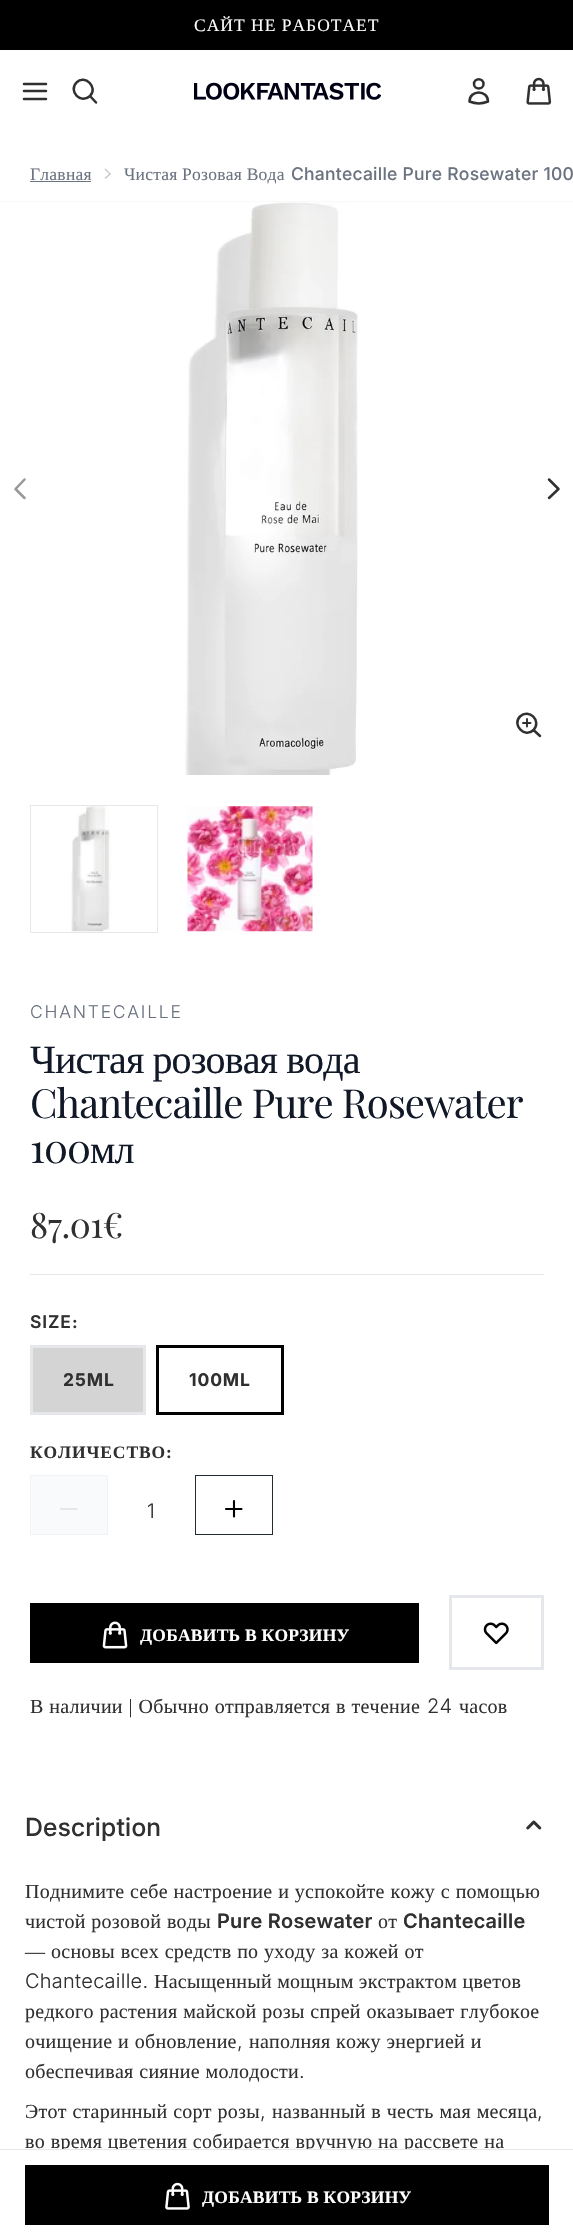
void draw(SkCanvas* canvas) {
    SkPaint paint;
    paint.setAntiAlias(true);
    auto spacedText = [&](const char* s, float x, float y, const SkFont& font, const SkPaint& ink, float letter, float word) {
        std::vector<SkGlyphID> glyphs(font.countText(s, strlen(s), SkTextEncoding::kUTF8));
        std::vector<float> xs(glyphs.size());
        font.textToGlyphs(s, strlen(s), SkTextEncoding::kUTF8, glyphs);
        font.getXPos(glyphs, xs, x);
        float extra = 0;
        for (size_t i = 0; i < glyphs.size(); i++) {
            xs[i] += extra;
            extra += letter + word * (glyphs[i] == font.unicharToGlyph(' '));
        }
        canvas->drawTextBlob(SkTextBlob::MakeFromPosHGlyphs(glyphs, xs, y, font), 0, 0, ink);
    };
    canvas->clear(0xFFFFFFFF);
    paint.setColor(0xFF000000);
    canvas->drawRect(SkRect::MakeXYWH(0, 0, 573, 50), paint);
    SkFont font1(fontMgr->matchFamilyStyle("Liberation Serif", SkFontStyle::Normal()), 17.5f);
    font1.setSubpixel(true);
    paint.setColor(0xFFFBFBF9);
    spacedText("САЙТ НЕ РАБОТАЕТ", 194, 31, font1, paint, 1, 0);
    paint.setStyle(SkPaint::kStroke_Style);
    paint.setStrokeWidth(2.5f);
    paint.setStrokeCap(SkPaint::kRound_Cap);
    paint.setStrokeJoin(SkPaint::kRound_Join);
    paint.setColor(0xFF303030);
    canvas->drawPath(SkPathBuilder().moveTo(24, 91).lineTo(46, 91).moveTo(24, 84).lineTo(46, 84).moveTo(24, 99).lineTo(46, 99).detach(), paint);
    canvas->drawPath(SkPathBuilder().moveTo(96, 102.5f).lineTo(90, 96).moveTo(90, 96).cubicTo(98.5f, 87.5f, 85, 74, 76.5f, 82.5f).cubicTo(68, 91.5f, 81, 104.5f, 90, 96).close().detach(), paint);
    canvas->drawImageRect(SkImages::DeferredFromEncodedData(SkData::MakeFromFileName("img1.png")), SkRect::MakeXYWH(194, 82, 187, 18), SkSamplingOptions());
    canvas->drawPath(SkPathBuilder().moveTo(483.5f, 84).cubicTo(483.5f, 90, 474, 90, 474, 84).cubicTo(474, 77.5f, 483.5f, 77.5f, 483.5f, 84).close().moveTo(469.5f, 101.5f).cubicTo(469.5f, 89.5f, 488, 89.5f, 488, 101.5f).cubicTo(482, 104, 475.5f, 104, 469.5f, 101.5f).close().detach(), paint);
    canvas->drawImageRect(SkImages::DeferredFromEncodedData(SkData::MakeFromFileName("img2.png")), SkRect::MakeXYWH(526, 77, 26, 28), SkSamplingOptions());
    paint.setStyle(SkPaint::kFill_Style);
    paint.setColor(0xFF6B7280);
    spacedText("Главная", 30, 180, font1, paint, 0.25f, 0);
    canvas->drawRect(SkRect::MakeXYWH(30, 181, 61, 1), paint);
    paint.setColor(0xFFC4C7CC);
    canvas->drawPath(SkPathBuilder().moveTo(105.5f, 168.5f).lineTo(111, 174).lineTo(110, 174.5f).lineTo(104.5f, 169.5f).close().detach(), paint);
    canvas->drawPath(SkPathBuilder().moveTo(110, 173).lineTo(111, 174).lineTo(105.5f, 179).lineTo(104.5f, 178).close().detach(), paint);
    paint.setColor(0xFF6B7280);
    spacedText("Чистая Розовая Вода", 124, 180, font1, paint, 0.25f, 0);
    SkFont font2(fontMgr->matchFamilyStyle("Inter", SkFontStyle(500, SkFontStyle::kNormal_Width, SkFontStyle::kUpright_Slant)), 17.5f);
    font2.setSubpixel(true);
    spacedText("Chantecaille Pure Rosewater 100", 291, 180, font2, paint, 0.25f, 0);
    paint.setColor(0xFFF1F2F3);
    canvas->drawRect(SkRect::MakeXYWH(0, 201, 573, 1), paint);
    canvas->drawImageRect(SkImages::DeferredFromEncodedData(SkData::MakeFromFileName("img3.png")), SkRect::MakeXYWH(0, 201, 573, 574), SkSamplingOptions());
    paint.setStyle(SkPaint::kStroke_Style);
    paint.setColor(0xFF989898);
    canvas->drawPath(SkPathBuilder().moveTo(24.5f, 498).lineTo(15.5f, 489).lineTo(24.5f, 479.5f).detach(), paint);
    paint.setColor(0xFF303030);
    canvas->drawPath(SkPathBuilder().moveTo(549, 479.5f).lineTo(558.5f, 489).lineTo(549, 498).detach(), paint);
    canvas->drawPath(SkPathBuilder().moveTo(540, 736).lineTo(533.5f, 730).moveTo(533.5f, 730).cubicTo(542, 721, 529, 708, 520, 716.5f).cubicTo(511.5f, 725, 525, 738.5f, 533.5f, 730).close().detach(), paint);
    paint.setStrokeWidth(1.9f);
    canvas->drawPath(SkPathBuilder().moveTo(523, 723).lineTo(530.5f, 723).moveTo(527, 719).lineTo(527, 726.5f).detach(), paint);
    paint.setStrokeWidth(1);
    paint.setStrokeCap(SkPaint::kButt_Cap);
    paint.setStrokeJoin(SkPaint::kMiter_Join);
    paint.setColor(0xFFE5E7EB);
    canvas->drawRect(SkRect::MakeXYWH(30.5f, 805.5f, 127, 127), paint);
    canvas->drawImageRect(SkImages::DeferredFromEncodedData(SkData::MakeFromFileName("img4.png")), SkRect::MakeXYWH(71, 806, 40, 126), SkSamplingOptions());
    canvas->drawImageRect(SkImages::DeferredFromEncodedData(SkData::MakeFromFileName("img5.png")), SkRect::MakeXYWH(187, 806, 126, 126), SkSamplingOptions());
    SkFont font3(fontMgr->matchFamilyStyle("Inter", SkFontStyle(300, SkFontStyle::kNormal_Width, SkFontStyle::kUpright_Slant)), 17.5f);
    font3.setSubpixel(true);
    paint.setStyle(SkPaint::kFill_Style);
    paint.setColor(0xFF6B7280);
    spacedText("CHANTECAILLE", 30, 1018, font3, paint, 1.75f, 0);
    SkFont font4(fontMgr->matchFamilyStyle("Liberation Serif", SkFontStyle::Normal()), 40);
    font4.setSubpixel(true);
    paint.setColor(0xFF111827);
    spacedText("Чистая розовая вода", 30, 1073, font4, paint, -0.9f, 0);
    SkFont font5(fontMgr->matchFamilyStyle("Playfair Display", SkFontStyle::Normal()), 40);
    font5.setSubpixel(true);
    spacedText("Chantecaille Pure Rosewater", 30, 1118, font5, paint, -0.9f, 0);
    spacedText("100", 30, 1163, font5, paint, -0.9f, 0);
    spacedText("мл", 90, 1163, font4, paint, -0.9f, 0);
    SkFont font6(fontMgr->matchFamilyStyle("Playfair Display", SkFontStyle::Normal()), 35);
    font6.setSubpixel(true);
    paint.setColor(0xFF303030);
    spacedText("87.01€", 30, 1238, font6, paint, -0.5f, 0);
    paint.setColor(0xFFE5E7EB);
    canvas->drawRect(SkRect::MakeXYWH(30, 1274, 514, 1), paint);
    SkFont font7(fontMgr->matchFamilyStyle("Inter", SkFontStyle(600, SkFontStyle::kNormal_Width, SkFontStyle::kUpright_Slant)), 17.5f);
    font7.setSubpixel(true);
    paint.setColor(0xFF303030);
    spacedText("SIZE", 30, 1328, font7, paint, 0.9f, 0);
    SkFont font8(fontMgr->matchFamilyStyle("Liberation Serif", SkFontStyle::Bold()), 17.5f);
    font8.setSubpixel(true);
    spacedText(":", 72, 1328, font8, paint, 0.9f, 0);
    paint.setColor(0xFFD4D4D4);
    canvas->drawRect(SkRect::MakeXYWH(31.5f, 1346.5f, 113, 67), paint);
    paint.setStyle(SkPaint::kStroke_Style);
    paint.setStrokeWidth(3);
    paint.setColor(0xFFE5E7EB);
    canvas->drawRect(SkRect::MakeXYWH(31.5f, 1346.5f, 113, 67), paint);
    SkFont font9(fontMgr->matchFamilyStyle("Inter", SkFontStyle::Bold()), 17.5f);
    font9.setSubpixel(true);
    paint.setStyle(SkPaint::kFill_Style);
    paint.setColor(0xFF303030);
    spacedText("25ML", 63, 1386, font9, paint, 0.9f, 0);
    paint.setStyle(SkPaint::kStroke_Style);
    paint.setColor(0xFF000000);
    canvas->drawRect(SkRect::MakeXYWH(157.5f, 1346.5f, 125, 67), paint);
    paint.setStyle(SkPaint::kFill_Style);
    paint.setColor(0xFF303030);
    spacedText("100ML", 189, 1386, font9, paint, 0.9f, 0);
    spacedText("КОЛИЧЕСТВО:", 30, 1458, font8, paint, 0.9f, 0);
    paint.setColor(0xFFF9FAFB);
    canvas->drawRect(SkRect::MakeXYWH(30.5f, 1475.5f, 77, 59), paint);
    paint.setStyle(SkPaint::kStroke_Style);
    paint.setStrokeWidth(1);
    paint.setColor(0xFFF2F3F5);
    canvas->drawRect(SkRect::MakeXYWH(30.5f, 1475.5f, 77, 59), paint);
    paint.setStrokeWidth(2.1f);
    paint.setStrokeCap(SkPaint::kRound_Cap);
    paint.setStrokeJoin(SkPaint::kRound_Join);
    paint.setColor(0xFFE6E6E7);
    canvas->drawPath(SkPathBuilder().moveTo(76.5f, 1509).lineTo(61, 1509).detach(), paint);
    SkFont font10(fontMgr->matchFamilyStyle("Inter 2", SkFontStyle(300, SkFontStyle::kNormal_Width, SkFontStyle::kUpright_Slant)), 20);
    font10.setSubpixel(true);
    paint.setStyle(SkPaint::kFill_Style);
    paint.setColor(0xFF303030);
    spacedText("1", 147, 1518, font10, paint, 0.25f, 0);
    paint.setStyle(SkPaint::kStroke_Style);
    paint.setStrokeWidth(1);
    paint.setStrokeCap(SkPaint::kButt_Cap);
    paint.setStrokeJoin(SkPaint::kMiter_Join);
    paint.setColor(0xFF222B31);
    canvas->drawRect(SkRect::MakeXYWH(195.5f, 1475.5f, 77, 59), paint);
    paint.setStrokeWidth(2.1f);
    paint.setStrokeCap(SkPaint::kRound_Cap);
    paint.setStrokeJoin(SkPaint::kRound_Join);
    paint.setColor(0xFF000000);
    canvas->drawPath(SkPathBuilder().moveTo(234, 1501).lineTo(234, 1516.5f).moveTo(241.5f, 1509).lineTo(226, 1509).detach(), paint);
    paint.setStyle(SkPaint::kFill_Style);
    canvas->drawRect(SkRect::MakeXYWH(30, 1603, 389, 60), paint);
    canvas->drawImageRect(SkImages::DeferredFromEncodedData(SkData::MakeFromFileName("img6.png")), SkRect::MakeXYWH(102, 1621, 26, 28), SkSamplingOptions());
    paint.setColor(0xFFFFFFFF);
    spacedText("ДОБАВИТЬ В КОРЗИНУ", 140, 1641, font8, paint, 0.25f, 0);
    paint.setStyle(SkPaint::kStroke_Style);
    paint.setStrokeWidth(3);
    paint.setStrokeCap(SkPaint::kButt_Cap);
    paint.setStrokeJoin(SkPaint::kMiter_Join);
    paint.setColor(0xFFE5E7EB);
    canvas->drawRect(SkRect::MakeXYWH(450.5f, 1596.5f, 92, 72), paint);
    canvas->drawImageRect(SkImages::DeferredFromEncodedData(SkData::MakeFromFileName("img7.png")), SkRect::MakeXYWH(483, 1622, 26, 23), SkSamplingOptions());
    SkFont font11(fontMgr->matchFamilyStyle("Liberation Serif", SkFontStyle::Normal()), 20);
    font11.setSubpixel(true);
    paint.setStyle(SkPaint::kFill_Style);
    paint.setColor(0xFF303030);
    spacedText("В наличии | Обычно отправляется в течение", 30, 1713, font11, paint, 0.25f, 0.5f);
    SkFont font12(fontMgr->matchFamilyStyle("Inter", SkFontStyle(300, SkFontStyle::kNormal_Width, SkFontStyle::kUpright_Slant)), 20);
    font12.setSubpixel(true);
    spacedText("24", 427, 1713, font12, paint, 0.25f, 0);
    spacedText("часов", 459, 1713, font11, paint, 0.25f, 0);
    SkFont font13(fontMgr->matchFamilyStyle("Inter 2", SkFontStyle(500, SkFontStyle::kNormal_Width, SkFontStyle::kUpright_Slant)), 25);
    font13.setSubpixel(true);
    spacedText("Description", 25, 1836, font13, paint, 0.25f, 0);
    canvas->drawImageRect(SkImages::DeferredFromEncodedData(SkData::MakeFromFileName("img8.png")), SkRect::MakeXYWH(526, 1820, 16, 10), SkSamplingOptions());
    spacedText("Поднимите себе настроение и успокойте кожу с помощью", 25, 1898, font11, paint, 0.25f, 0.5f);
    spacedText("чистой розовой воды", 25, 1928, font11, paint, 0.25f, 0.5f);
    SkFont font14(fontMgr->matchFamilyStyle("Inter 2", SkFontStyle(600, SkFontStyle::kNormal_Width, SkFontStyle::kUpright_Slant)), 20);
    font14.setSubpixel(true);
    spacedText("Pure Rosewater", 217, 1928, font14, paint, 0.25f, 0);
    spacedText("от", 378, 1928, font11, paint, 0.25f, 0);
    spacedText("Chantecaille", 403, 1928, font14, paint, 0.25f, 0);
    spacedText("— основы всех средств по уходу за кожей от", 25, 1958, font11, paint, 0.25f, 0.5f);
    spacedText("Chantecaille.", 25, 1988, font12, paint, 0.25f, 0);
    spacedText("Насыщенный мощным экстрактом цветов", 154, 1988, font11, paint, 0.25f, 0);
    spacedText("редкого растения майской розы спрей оказывает глубокое", 25, 2018, font11, paint, 0.25f, 0.5f);
    spacedText("очищение и обновление", 25, 2048, font11, paint, 0.25f, 0.5f);
    spacedText(",", 237, 2048, font12, paint, 0.25f, 0);
    spacedText("наполняя кожу энергией и", 249, 2048, font11, paint, 0.25f, 0.5f);
    spacedText("обеспечивая сияние молодости", 25, 2078, font11, paint, 0.25f, 0.5f);
    spacedText(".", 299, 2078, font12, paint, 0.25f, 0);
    spacedText("Этот старинный сорт розы", 25, 2118, font11, paint, 0.25f, 0.5f);
    spacedText(",", 260, 2118, font12, paint, 0.25f, 0);
    spacedText("названный в честь мая месяца", 272, 2118, font11, paint, 0.25f, 0.5f);
    spacedText(",", 537, 2118, font12, paint, 0.25f, 0);
    spacedText("во время цветения собирается вручную на рассвете на", 25, 2148, font11, paint, 0.25f, 0.5f);
    paint.setColor(0xFFFFFFFF);
    canvas->drawRect(SkRect::MakeXYWH(60, 2150, 349, 3), paint);
    paint.setColor(0xFFE5E7EB);
    canvas->drawRect(SkRect::MakeXYWH(0, 2149, 573, 1), paint);
    paint.setColor(0xFF000000);
    canvas->drawRect(SkRect::MakeXYWH(25, 2165, 524, 60), paint);
    canvas->drawImageRect(SkImages::DeferredFromEncodedData(SkData::MakeFromFileName("img9.png")), SkRect::MakeXYWH(165, 2182, 25, 28), SkSamplingOptions());
    paint.setColor(0xFFFFFFFF);
    spacedText("ДОБАВИТЬ В КОРЗИНУ", 202, 2203, font8, paint, 0.25f, 0);
}
